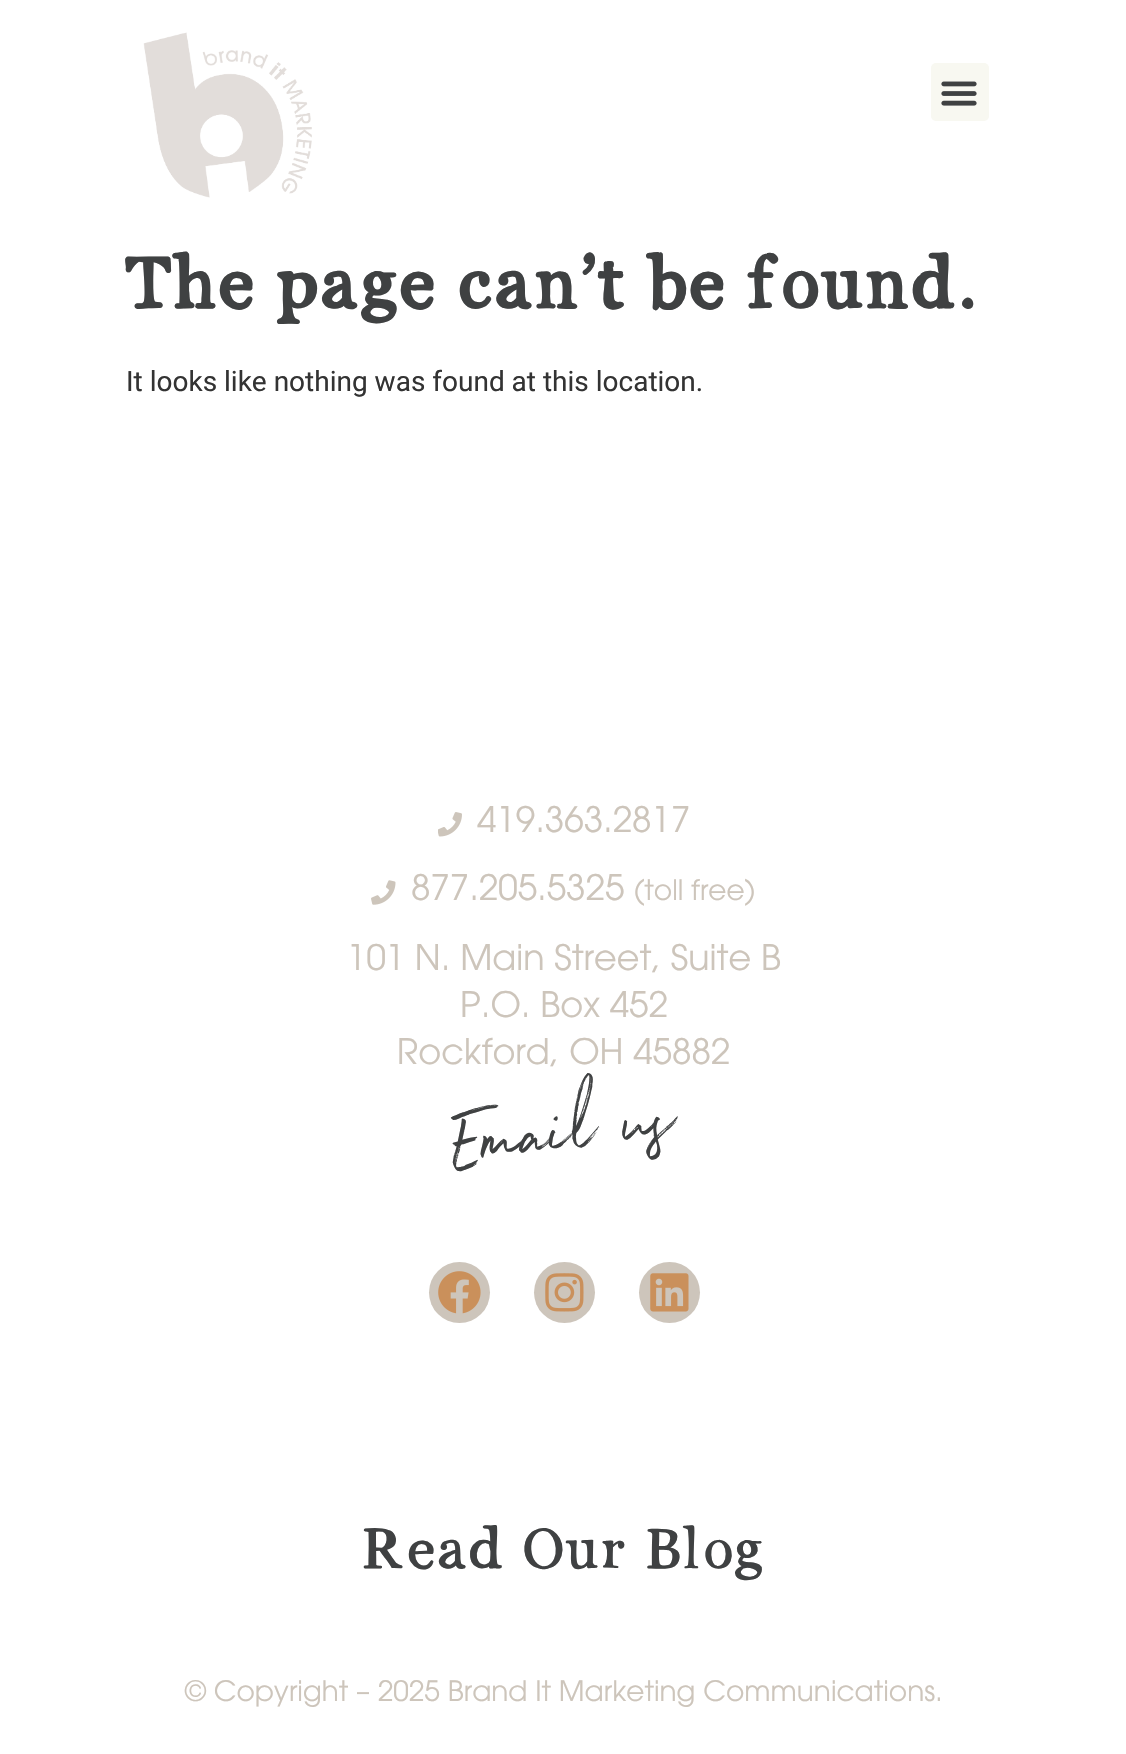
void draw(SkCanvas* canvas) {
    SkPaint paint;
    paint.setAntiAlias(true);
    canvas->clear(0xFFFFFFFF);
    canvas->drawImageRect(SkImages::DeferredFromEncodedData(SkData::MakeFromFileName("img1.png")), SkRect::MakeXYWH(143, 32, 169, 166), SkSamplingOptions());
    paint.setColor(0xFFF8F8F1);
    canvas->drawRoundRect(SkRect::MakeXYWH(931, 63, 58, 58), 5, 5, paint);
    canvas->drawImageRect(SkImages::DeferredFromEncodedData(SkData::MakeFromFileName("img2.png")), SkRect::MakeXYWH(941, 81, 36, 25), SkSamplingOptions());
    SkFont font1(fontMgr->matchFamilyStyle("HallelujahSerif", SkFontStyle::Bold()), 70);
    font1.setSubpixel(true);
    paint.setColor(0xFF3F4142);
    canvas->drawString("The page can’t be found.", 126, 308, font1, paint);
    SkFont font2(fontMgr->matchFamilyStyle("Roboto", SkFontStyle::Normal()), 28);
    font2.setSubpixel(true);
    paint.setColor(0xFF333333);
    canvas->drawString("It looks like nothing was found at this location.", 126, 391, font2, paint);
    canvas->drawImageRect(SkImages::DeferredFromEncodedData(SkData::MakeFromFileName("img3.png")), SkRect::MakeXYWH(438, 812, 24, 25), SkSamplingOptions());
    SkFont font3(fontMgr->matchFamilyStyle("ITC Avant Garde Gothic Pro", SkFontStyle(300, SkFontStyle::kNormal_Width, SkFontStyle::kUpright_Slant)), 35);
    font3.setSubpixel(true);
    paint.setColor(0xFFCDC5BB);
    canvas->drawString("419.363.2817", 477, 832, font3, paint);
    canvas->drawImageRect(SkImages::DeferredFromEncodedData(SkData::MakeFromFileName("img4.png")), SkRect::MakeXYWH(371, 880, 25, 25), SkSamplingOptions());
    canvas->drawString("877.205.5325", 411, 900, font3, paint);
    SkFont font4(fontMgr->matchFamilyStyle("ITC Avant Garde Gothic Pro", SkFontStyle(300, SkFontStyle::kNormal_Width, SkFontStyle::kUpright_Slant)), 28);
    font4.setSubpixel(true);
    canvas->drawString("(toll free)", 634, 900, font4, paint);
    canvas->drawString("101 N. Main Street, Suite B", 347, 970, font3, paint);
    canvas->drawString("P.O. Box 452", 460, 1017, font3, paint);
    canvas->drawString("Rockford, OH 45882", 397, 1064, font3, paint);
    SkFont font5(fontMgr->matchFamilyStyle("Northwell", SkFontStyle::Normal()), 84);
    font5.setSubpixel(true);
    paint.setColor(0xFF3F4142);
    canvas->save();
    canvas->rotate(-7, 451, 1160);
    canvas->drawString("Email us", 451, 1160, font5, paint);
    canvas->restore();
    paint.setColor(0xFFCDC5BB);
    canvas->drawCircle(459.5f, 1292.5f, 30.5f, paint);
    canvas->drawImageRect(SkImages::DeferredFromEncodedData(SkData::MakeFromFileName("img5.png")), SkRect::MakeXYWH(438, 1271, 43, 43), SkSamplingOptions());
    canvas->drawCircle(564.5f, 1292.5f, 30.5f, paint);
    canvas->drawImageRect(SkImages::DeferredFromEncodedData(SkData::MakeFromFileName("img6.png")), SkRect::MakeXYWH(545, 1273, 39, 39), SkSamplingOptions());
    canvas->drawCircle(669.5f, 1292.5f, 30.5f, paint);
    canvas->drawImageRect(SkImages::DeferredFromEncodedData(SkData::MakeFromFileName("img7.png")), SkRect::MakeXYWH(650, 1273, 39, 39), SkSamplingOptions());
    SkFont font6(fontMgr->matchFamilyStyle("HallelujahSerif", SkFontStyle(500, SkFontStyle::kNormal_Width, SkFontStyle::kUpright_Slant)), 56);
    font6.setSubpixel(true);
    paint.setColor(0xFF3F4142);
    canvas->drawString("Read Our Blog", 362, 1568, font6, paint);
    paint.setColor(0xFFCDC5BB);
    canvas->drawString("© Copyright – 2025 Brand It Marketing Communications.", 185, 1701, font4, paint);
}
